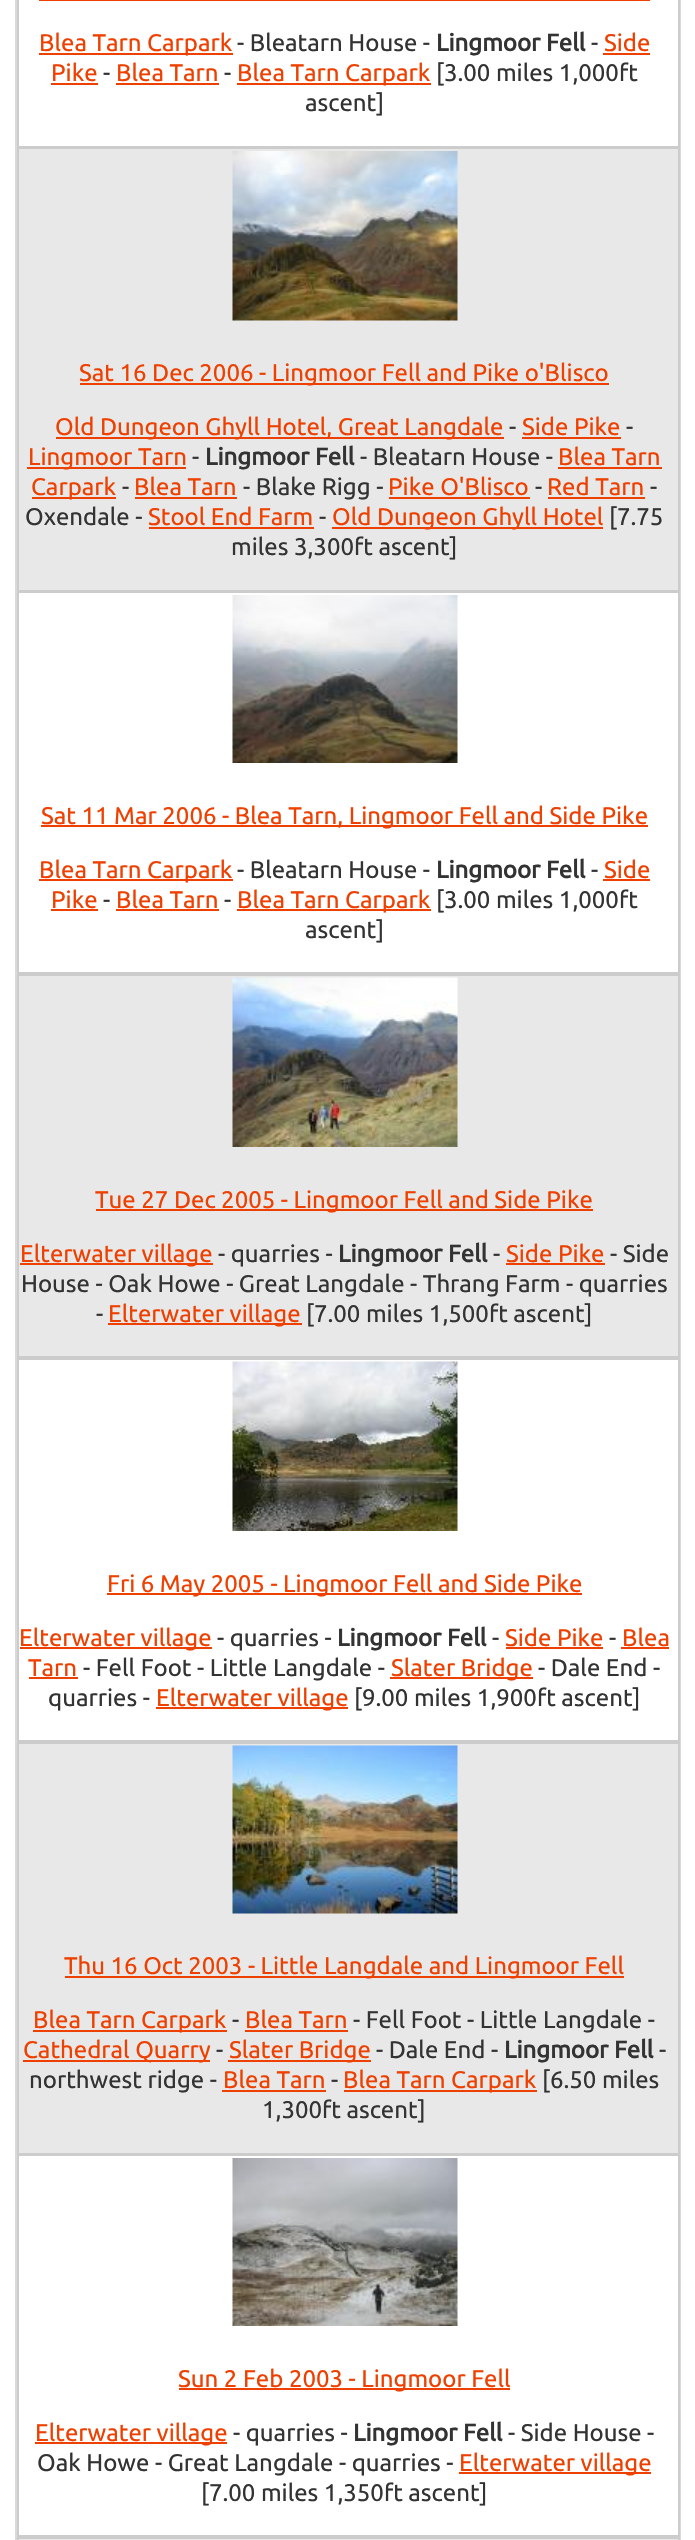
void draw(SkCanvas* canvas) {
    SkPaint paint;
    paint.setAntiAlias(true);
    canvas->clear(0xFFFFFFFF);
    paint.setStyle(SkPaint::kStroke_Style);
    paint.setStrokeWidth(2);
    paint.setColor(0xFFD9D9D9);
    canvas->drawRect(SkRect::MakeXYWH(16, -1, 664, 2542), paint);
    paint.setStyle(SkPaint::kFill_Style);
    paint.setColor(0xFFCCCCCC);
    canvas->drawRect(SkRect::MakeXYWH(678, 0, 2, 147), paint);
    canvas->drawRect(SkRect::MakeXYWH(17, 0, 2, 147), paint);
    canvas->drawRect(SkRect::MakeXYWH(17, 148, 663, 1), paint);
    canvas->drawRect(SkRect::MakeXYWH(17, 147, 2, 444), paint);
    canvas->drawRect(SkRect::MakeXYWH(18, 146, 660, 2), paint);
    paint.setColor(0xFFEE4000);
    canvas->drawRect(SkRect::MakeXYWH(39, 0, 611, 1), paint);
    canvas->drawRect(SkRect::MakeXYWH(39, 53, 194, 2), paint);
    SkFont font1(fontMgr->matchFamilyStyle("Ubuntu", SkFontStyle::Normal()), 24);
    font1.setSubpixel(true);
    canvas->drawString("Blea Tarn Carpark", 39, 51, font1, paint);
    paint.setColor(0xFF333333);
    canvas->drawString("- Bleatarn House -", 237, 51, font1, paint);
    SkFont font2(fontMgr->matchFamilyStyle("Ubuntu", SkFontStyle::Bold()), 24);
    font2.setSubpixel(true);
    canvas->drawString("Lingmoor Fell", 436, 51, font2, paint);
    canvas->drawString("-", 591, 51, font1, paint);
    paint.setColor(0xFFEE4000);
    canvas->drawString("Side", 604, 51, font1, paint);
    canvas->drawRect(SkRect::MakeXYWH(603, 53, 47, 2), paint);
    canvas->drawString("Pike", 51, 81, font1, paint);
    canvas->drawRect(SkRect::MakeXYWH(51, 83, 47, 2), paint);
    paint.setColor(0xFF333333);
    canvas->drawString("-", 103, 81, font1, paint);
    paint.setColor(0xFFEE4000);
    canvas->drawString("Blea Tarn", 116, 81, font1, paint);
    canvas->drawRect(SkRect::MakeXYWH(116, 83, 103, 2), paint);
    paint.setColor(0xFF333333);
    canvas->drawString("-", 224, 81, font1, paint);
    paint.setColor(0xFFEE4000);
    canvas->drawRect(SkRect::MakeXYWH(237, 83, 194, 2), paint);
    canvas->drawString("Blea Tarn Carpark", 237, 81, font1, paint);
    paint.setColor(0xFF333333);
    canvas->drawString("[3.00 miles 1,000ft", 436, 81, font1, paint);
    canvas->drawString("ascent]", 305, 111, font1, paint);
    paint.setColor(0xFFE8E8E8);
    canvas->drawRect(SkRect::MakeXYWH(19, 149, 659, 441), paint);
    paint.setColor(0xFFCCCCCC);
    canvas->drawRect(SkRect::MakeXYWH(678, 147, 2, 444), paint);
    canvas->drawImageRect(SkImages::DeferredFromEncodedData(SkData::MakeFromFileName("img1.png")), SkRect::MakeXYWH(232, 151, 226, 170), SkSamplingOptions());
    canvas->drawRect(SkRect::MakeXYWH(17, 592, 663, 1), paint);
    canvas->drawRect(SkRect::MakeXYWH(17, 591, 2, 383), paint);
    canvas->drawRect(SkRect::MakeXYWH(18, 590, 660, 2), paint);
    paint.setColor(0xFFEE4000);
    canvas->drawRect(SkRect::MakeXYWH(80, 383, 529, 2), paint);
    canvas->drawString("Sat 16 Dec 2006 - Lingmoor Fell and Pike o'Blisco", 79, 381, font1, paint);
    canvas->drawRect(SkRect::MakeXYWH(56, 437, 448, 2), paint);
    canvas->drawString("Old Dungeon Ghyll Hotel, Great Langdale", 55, 435, font1, paint);
    paint.setColor(0xFF333333);
    canvas->drawString("-", 509, 435, font1, paint);
    paint.setColor(0xFFEE4000);
    canvas->drawString("Side Pike", 522, 435, font1, paint);
    canvas->drawRect(SkRect::MakeXYWH(522, 437, 99, 2), paint);
    paint.setColor(0xFF333333);
    canvas->drawString("-", 626, 435, font1, paint);
    paint.setColor(0xFFEE4000);
    canvas->drawRect(SkRect::MakeXYWH(27, 467, 159, 2), paint);
    canvas->drawString("Lingmoor Tarn", 28, 465, font1, paint);
    paint.setColor(0xFF333333);
    canvas->drawString("-", 192, 465, font1, paint);
    canvas->drawString("Lingmoor Fell", 205, 465, font2, paint);
    canvas->drawString("- Bleatarn House -", 360, 465, font1, paint);
    paint.setColor(0xFFEE4000);
    canvas->drawString("Blea Tarn", 558, 465, font1, paint);
    canvas->drawRect(SkRect::MakeXYWH(558, 467, 104, 2), paint);
    canvas->drawRect(SkRect::MakeXYWH(32, 497, 84, 2), paint);
    canvas->drawString("Carpark", 31, 495, font1, paint);
    paint.setColor(0xFF333333);
    canvas->drawString("-", 122, 495, font1, paint);
    paint.setColor(0xFFEE4000);
    canvas->drawString("Blea Tarn", 134, 495, font1, paint);
    canvas->drawRect(SkRect::MakeXYWH(135, 497, 102, 2), paint);
    paint.setColor(0xFF333333);
    canvas->drawString("- Blake Rigg -", 243, 495, font1, paint);
    paint.setColor(0xFFEE4000);
    canvas->drawString("Pike O'Blisco", 388, 495, font1, paint);
    canvas->drawRect(SkRect::MakeXYWH(389, 497, 141, 2), paint);
    paint.setColor(0xFF333333);
    canvas->drawString("-", 535, 495, font1, paint);
    paint.setColor(0xFFEE4000);
    canvas->drawString("Red Tarn", 547, 495, font1, paint);
    canvas->drawRect(SkRect::MakeXYWH(548, 497, 97, 2), paint);
    paint.setColor(0xFF333333);
    canvas->drawString("-", 650, 495, font1, paint);
    canvas->drawString("Oxendale -", 25, 525, font1, paint);
    paint.setColor(0xFFEE4000);
    canvas->drawString("Stool End Farm", 148, 525, font1, paint);
    canvas->drawRect(SkRect::MakeXYWH(149, 527, 165, 2), paint);
    paint.setColor(0xFF333333);
    canvas->drawString("-", 319, 525, font1, paint);
    paint.setColor(0xFFEE4000);
    canvas->drawRect(SkRect::MakeXYWH(332, 527, 271, 2), paint);
    canvas->drawString("Old Dungeon Ghyll Hotel", 332, 525, font1, paint);
    paint.setColor(0xFF333333);
    canvas->drawString("[7.75", 609, 525, font1, paint);
    canvas->drawString("miles 3,300ft ascent]", 231, 555, font1, paint);
    paint.setColor(0xFFCCCCCC);
    canvas->drawRect(SkRect::MakeXYWH(678, 591, 2, 383), paint);
    canvas->drawImageRect(SkImages::DeferredFromEncodedData(SkData::MakeFromFileName("img2.png")), SkRect::MakeXYWH(232, 595, 226, 168), SkSamplingOptions());
    canvas->drawRect(SkRect::MakeXYWH(18, 972, 660, 2), paint);
    paint.setColor(0xFFEE4000);
    canvas->drawRect(SkRect::MakeXYWH(41, 825, 607, 2), paint);
    canvas->drawString("Sat 11 Mar 2006 - Blea Tarn, Lingmoor Fell and Side Pike", 41, 824, font1, paint);
    canvas->drawRect(SkRect::MakeXYWH(39, 879, 194, 2), paint);
    canvas->drawString("Blea Tarn Carpark", 39, 878, font1, paint);
    paint.setColor(0xFF333333);
    canvas->drawString("- Bleatarn House -", 237, 878, font1, paint);
    canvas->drawString("Lingmoor Fell", 436, 878, font2, paint);
    canvas->drawString("-", 591, 878, font1, paint);
    paint.setColor(0xFFEE4000);
    canvas->drawString("Side", 604, 878, font1, paint);
    canvas->drawRect(SkRect::MakeXYWH(603, 879, 47, 2), paint);
    canvas->drawString("Pike", 51, 908, font1, paint);
    canvas->drawRect(SkRect::MakeXYWH(51, 909, 47, 2), paint);
    paint.setColor(0xFF333333);
    canvas->drawString("-", 103, 908, font1, paint);
    paint.setColor(0xFFEE4000);
    canvas->drawString("Blea Tarn", 116, 908, font1, paint);
    canvas->drawRect(SkRect::MakeXYWH(116, 909, 103, 2), paint);
    paint.setColor(0xFF333333);
    canvas->drawString("-", 224, 908, font1, paint);
    paint.setColor(0xFFEE4000);
    canvas->drawRect(SkRect::MakeXYWH(237, 909, 194, 2), paint);
    canvas->drawString("Blea Tarn Carpark", 237, 908, font1, paint);
    paint.setColor(0xFF333333);
    canvas->drawString("[3.00 miles 1,000ft", 436, 908, font1, paint);
    canvas->drawString("ascent]", 305, 938, font1, paint);
    paint.setColor(0xFFE8E8E8);
    canvas->drawRect(SkRect::MakeXYWH(19, 976, 659, 380), paint);
    paint.setColor(0xFFCCCCCC);
    canvas->drawRect(SkRect::MakeXYWH(17, 974, 663, 2), paint);
    canvas->drawRect(SkRect::MakeXYWH(678, 974, 2, 384), paint);
    canvas->drawRect(SkRect::MakeXYWH(17, 974, 2, 384), paint);
    canvas->drawImageRect(SkImages::DeferredFromEncodedData(SkData::MakeFromFileName("img3.png")), SkRect::MakeXYWH(232, 977, 226, 170), SkSamplingOptions());
    canvas->drawRect(SkRect::MakeXYWH(18, 1356, 660, 2), paint);
    paint.setColor(0xFFEE4000);
    canvas->drawRect(SkRect::MakeXYWH(96, 1209, 497, 2), paint);
    canvas->drawString("Tue 27 Dec 2005 - Lingmoor Fell and Side Pike", 95, 1208, font1, paint);
    canvas->drawRect(SkRect::MakeXYWH(20, 1263, 193, 2), paint);
    canvas->drawString("Elterwater village", 20, 1262, font1, paint);
    paint.setColor(0xFF333333);
    canvas->drawString("- quarries -", 218, 1262, font1, paint);
    canvas->drawString("Lingmoor Fell", 338, 1262, font2, paint);
    canvas->drawString("-", 493, 1262, font1, paint);
    paint.setColor(0xFFEE4000);
    canvas->drawString("Side Pike", 506, 1262, font1, paint);
    canvas->drawRect(SkRect::MakeXYWH(506, 1263, 99, 2), paint);
    paint.setColor(0xFF333333);
    canvas->drawString("- Side", 610, 1262, font1, paint);
    canvas->drawString("House - Oak Howe - Great Langdale - Thrang Farm - quarries", 21, 1292, font1, paint);
    canvas->drawString("-", 96, 1322, font1, paint);
    paint.setColor(0xFFEE4000);
    canvas->drawRect(SkRect::MakeXYWH(108, 1323, 194, 2), paint);
    canvas->drawString("Elterwater village", 108, 1322, font1, paint);
    paint.setColor(0xFF333333);
    canvas->drawString("[7.00 miles 1,500ft ascent]", 306, 1322, font1, paint);
    paint.setColor(0xFFCCCCCC);
    canvas->drawRect(SkRect::MakeXYWH(17, 1358, 663, 2), paint);
    canvas->drawRect(SkRect::MakeXYWH(678, 1358, 2, 384), paint);
    canvas->drawRect(SkRect::MakeXYWH(17, 1358, 2, 384), paint);
    canvas->drawImageRect(SkImages::DeferredFromEncodedData(SkData::MakeFromFileName("img4.png")), SkRect::MakeXYWH(232, 1361, 226, 170), SkSamplingOptions());
    canvas->drawRect(SkRect::MakeXYWH(18, 1740, 660, 2), paint);
    paint.setColor(0xFFEE4000);
    canvas->drawRect(SkRect::MakeXYWH(107, 1593, 475, 2), paint);
    canvas->drawString("Fri 6 May 2005 - Lingmoor Fell and Side Pike", 107, 1592, font1, paint);
    canvas->drawRect(SkRect::MakeXYWH(20, 1647, 192, 2), paint);
    canvas->drawString("Elterwater village", 19, 1646, font1, paint);
    paint.setColor(0xFF333333);
    canvas->drawString("- quarries -", 217, 1646, font1, paint);
    canvas->drawString("Lingmoor Fell", 337, 1646, font2, paint);
    canvas->drawString("-", 492, 1646, font1, paint);
    paint.setColor(0xFFEE4000);
    canvas->drawString("Side Pike", 505, 1646, font1, paint);
    canvas->drawRect(SkRect::MakeXYWH(506, 1647, 97, 2), paint);
    paint.setColor(0xFF333333);
    canvas->drawString("-", 609, 1646, font1, paint);
    paint.setColor(0xFFEE4000);
    canvas->drawString("Blea", 622, 1646, font1, paint);
    canvas->drawRect(SkRect::MakeXYWH(621, 1647, 48, 2), paint);
    canvas->drawString("Tarn", 28, 1676, font1, paint);
    canvas->drawRect(SkRect::MakeXYWH(29, 1677, 49, 2), paint);
    paint.setColor(0xFF333333);
    canvas->drawString("- Fell Foot - Little Langdale -", 83, 1676, font1, paint);
    paint.setColor(0xFFEE4000);
    canvas->drawRect(SkRect::MakeXYWH(390, 1677, 143, 2), paint);
    canvas->drawString("Slater Bridge", 391, 1676, font1, paint);
    paint.setColor(0xFF333333);
    canvas->drawString("- Dale End -", 538, 1676, font1, paint);
    canvas->drawString("quarries -", 48, 1706, font1, paint);
    paint.setColor(0xFFEE4000);
    canvas->drawRect(SkRect::MakeXYWH(156, 1707, 192, 2), paint);
    canvas->drawString("Elterwater village", 156, 1706, font1, paint);
    paint.setColor(0xFF333333);
    canvas->drawString("[9.00 miles 1,900ft ascent]", 354, 1706, font1, paint);
    paint.setColor(0xFFE8E8E8);
    canvas->drawRect(SkRect::MakeXYWH(19, 1744, 659, 409), paint);
    paint.setColor(0xFFCCCCCC);
    canvas->drawRect(SkRect::MakeXYWH(17, 1742, 663, 2), paint);
    canvas->drawRect(SkRect::MakeXYWH(678, 1742, 2, 412), paint);
    canvas->drawRect(SkRect::MakeXYWH(17, 1742, 2, 412), paint);
    canvas->drawImageRect(SkImages::DeferredFromEncodedData(SkData::MakeFromFileName("img5.png")), SkRect::MakeXYWH(232, 1745, 226, 169), SkSamplingOptions());
    canvas->drawRect(SkRect::MakeXYWH(17, 2155, 663, 1), paint);
    canvas->drawRect(SkRect::MakeXYWH(17, 2154, 2, 383), paint);
    canvas->drawRect(SkRect::MakeXYWH(18, 2153, 660, 2), paint);
    paint.setColor(0xFFEE4000);
    canvas->drawRect(SkRect::MakeXYWH(65, 1976, 559, 2), paint);
    canvas->drawString("Thu 16 Oct 2003 - Little Langdale and Lingmoor Fell", 64, 1974, font1, paint);
    canvas->drawRect(SkRect::MakeXYWH(33, 2030, 194, 2), paint);
    canvas->drawString("Blea Tarn Carpark", 33, 2028, font1, paint);
    paint.setColor(0xFF333333);
    canvas->drawString("-", 232, 2028, font1, paint);
    paint.setColor(0xFFEE4000);
    canvas->drawString("Blea Tarn", 245, 2028, font1, paint);
    canvas->drawRect(SkRect::MakeXYWH(245, 2030, 103, 2), paint);
    paint.setColor(0xFF333333);
    canvas->drawString("- Fell Foot - Little Langdale -", 353, 2028, font1, paint);
    paint.setColor(0xFFEE4000);
    canvas->drawRect(SkRect::MakeXYWH(23, 2060, 187, 2), paint);
    canvas->drawString("Cathedral Quarry", 23, 2058, font1, paint);
    paint.setColor(0xFF333333);
    canvas->drawString("-", 216, 2058, font1, paint);
    paint.setColor(0xFFEE4000);
    canvas->drawRect(SkRect::MakeXYWH(228, 2060, 143, 2), paint);
    canvas->drawString("Slater Bridge", 229, 2058, font1, paint);
    paint.setColor(0xFF333333);
    canvas->drawString("- Dale End -", 376, 2058, font1, paint);
    canvas->drawString("Lingmoor Fell", 504, 2058, font2, paint);
    canvas->drawString("-", 659, 2058, font1, paint);
    canvas->drawString("northwest ridge -", 29, 2088, font1, paint);
    paint.setColor(0xFFEE4000);
    canvas->drawString("Blea Tarn", 223, 2088, font1, paint);
    canvas->drawRect(SkRect::MakeXYWH(222, 2090, 104, 2), paint);
    paint.setColor(0xFF333333);
    canvas->drawString("-", 331, 2088, font1, paint);
    paint.setColor(0xFFEE4000);
    canvas->drawRect(SkRect::MakeXYWH(344, 2090, 193, 2), paint);
    canvas->drawString("Blea Tarn Carpark", 343, 2088, font1, paint);
    paint.setColor(0xFF333333);
    canvas->drawString("[6.50 miles", 542, 2088, font1, paint);
    canvas->drawString("1,300ft ascent]", 262, 2118, font1, paint);
    paint.setColor(0xFFCCCCCC);
    canvas->drawRect(SkRect::MakeXYWH(678, 2154, 2, 383), paint);
    canvas->drawImageRect(SkImages::DeferredFromEncodedData(SkData::MakeFromFileName("img6.png")), SkRect::MakeXYWH(232, 2158, 226, 168), SkSamplingOptions());
    canvas->drawRect(SkRect::MakeXYWH(18, 2535, 660, 2), paint);
    paint.setColor(0xFFEE4000);
    canvas->drawRect(SkRect::MakeXYWH(179, 2388, 331, 2), paint);
    canvas->drawString("Sun 2 Feb 2003 - Lingmoor Fell", 178, 2387, font1, paint);
    canvas->drawRect(SkRect::MakeXYWH(35, 2442, 192, 2), paint);
    canvas->drawString("Elterwater village", 35, 2441, font1, paint);
    paint.setColor(0xFF333333);
    canvas->drawString("- quarries -", 233, 2441, font1, paint);
    canvas->drawString("Lingmoor Fell", 353, 2441, font2, paint);
    canvas->drawString("- Side House -", 508, 2441, font1, paint);
    canvas->drawString("Oak Howe - Great Langdale - quarries -", 37, 2471, font1, paint);
    paint.setColor(0xFFEE4000);
    canvas->drawRect(SkRect::MakeXYWH(459, 2472, 192, 2), paint);
    canvas->drawString("Elterwater village", 459, 2471, font1, paint);
    paint.setColor(0xFF333333);
    canvas->drawString("[7.00 miles 1,350ft ascent]", 201, 2501, font1, paint);
    paint.setColor(0xFFE8E8E8);
    canvas->drawRect(SkRect::MakeXYWH(17, 2539, 663, 1), paint);
    paint.setColor(0xFFCCCCCC);
    canvas->drawRect(SkRect::MakeXYWH(17, 2537, 663, 2), paint);
    canvas->drawRect(SkRect::MakeXYWH(678, 2537, 2, 3), paint);
    canvas->drawRect(SkRect::MakeXYWH(17, 2537, 2, 3), paint);
}
